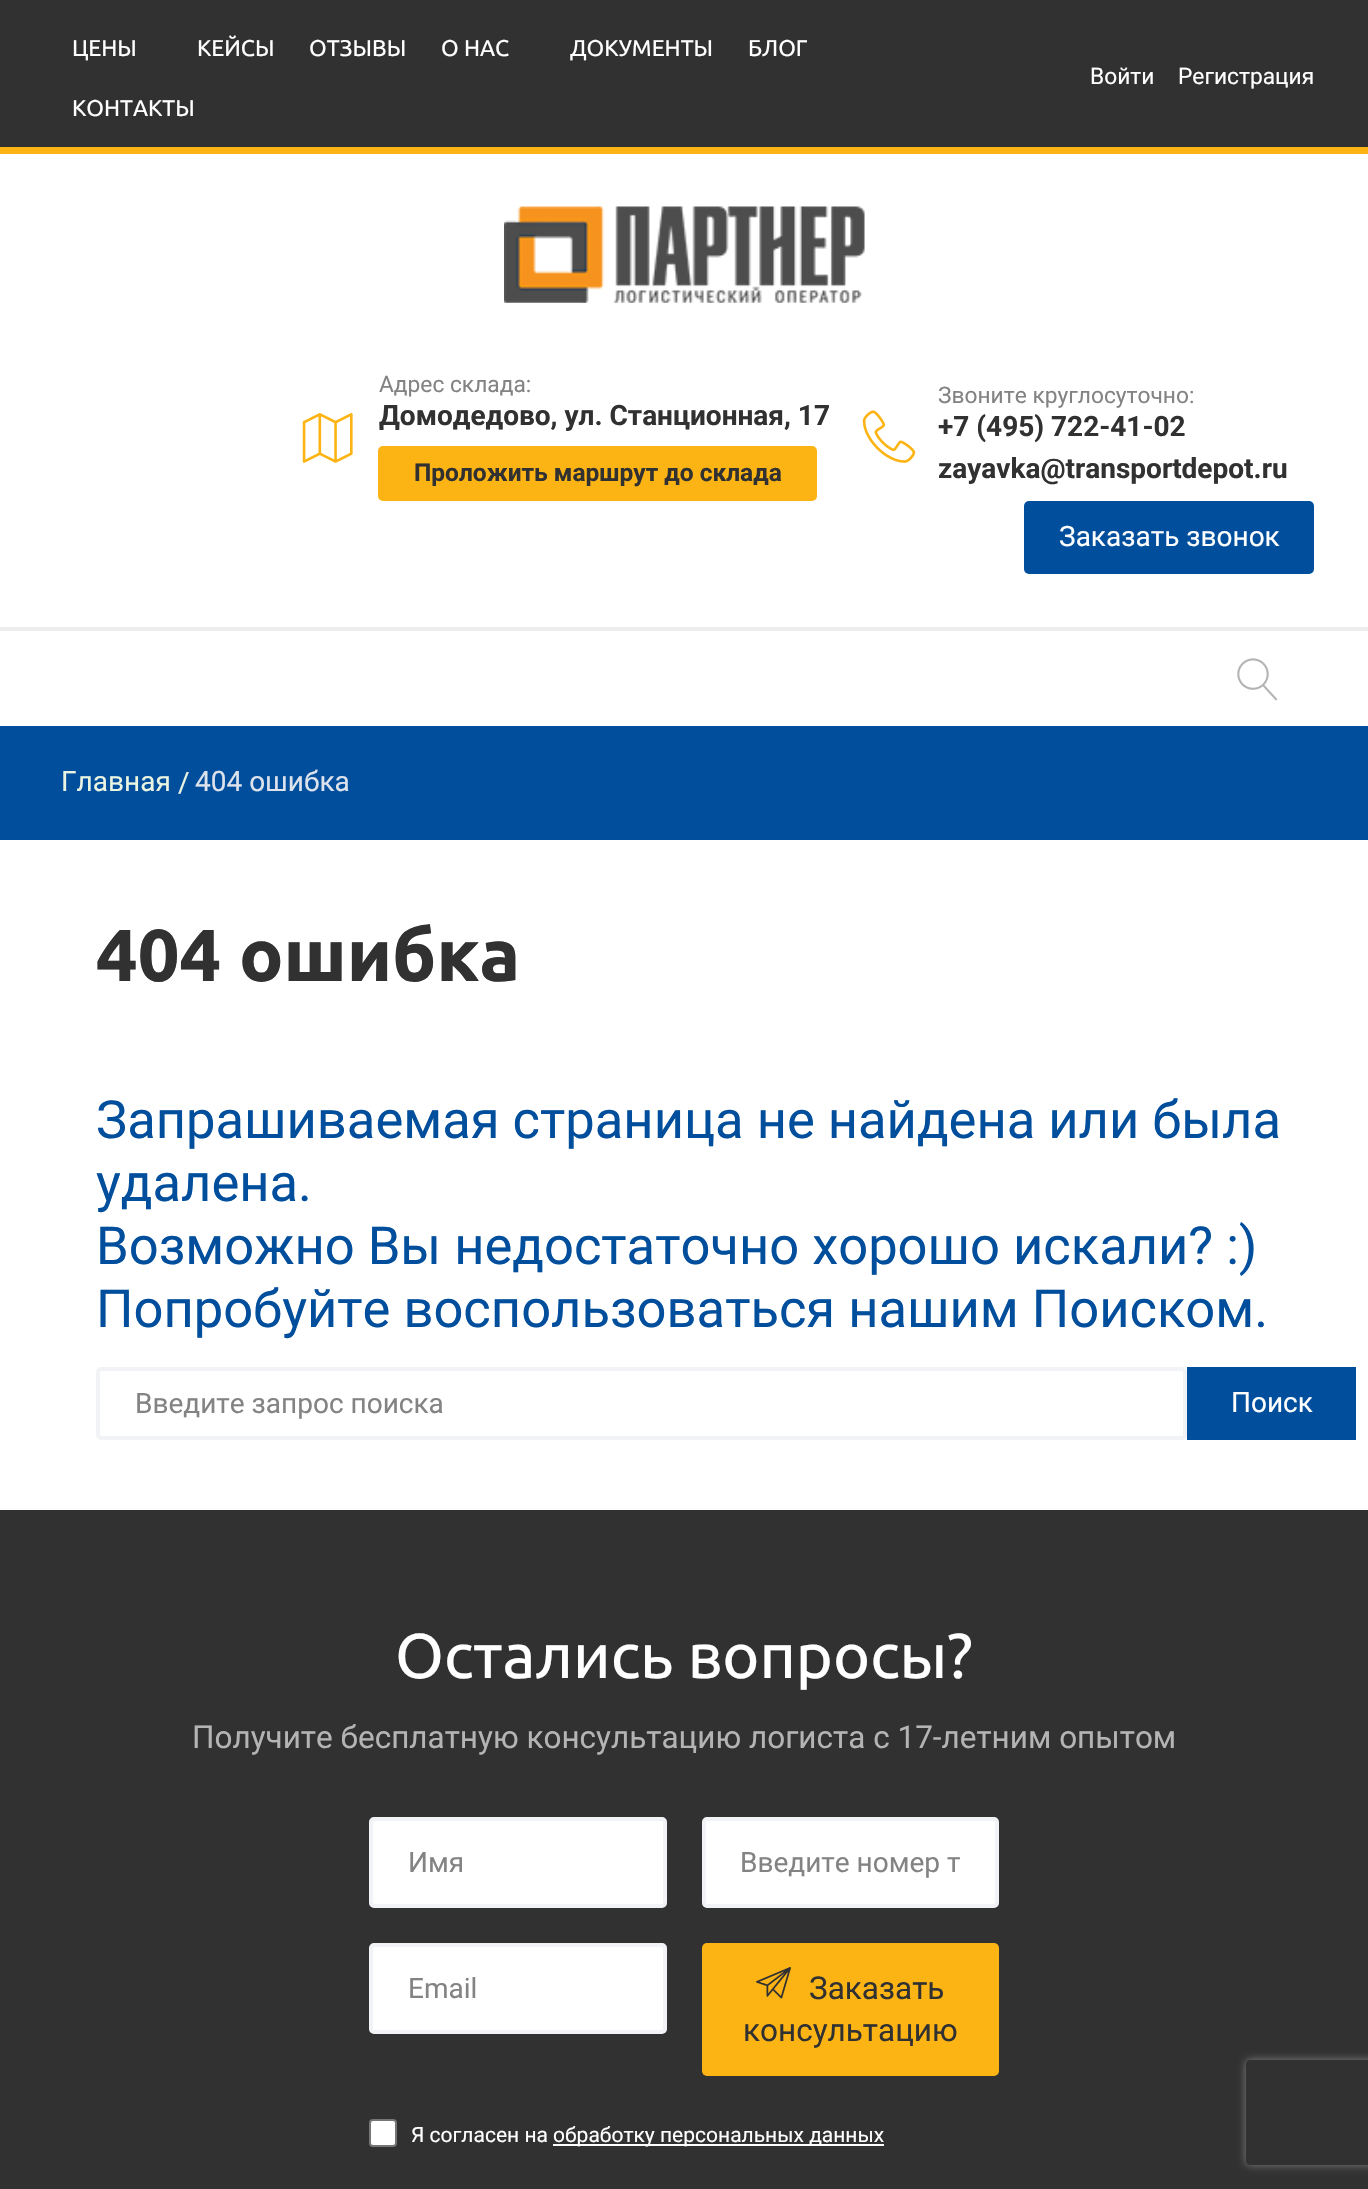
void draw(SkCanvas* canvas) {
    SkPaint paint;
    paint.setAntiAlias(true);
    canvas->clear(0xFFFFFFFF);
    paint.setColor(0xFF313131);
    canvas->drawRect(SkRect::MakeXYWH(0, 0, 1368, 147), paint);
    paint.setColor(0xFFFCB414);
    canvas->drawRect(SkRect::MakeXYWH(0, 147, 1368, 7), paint);
    SkFont font1(fontMgr->matchFamilyStyle("Ubuntu", SkFontStyle::Normal()), 22.75f);
    font1.setSubpixel(true);
    paint.setColor(0xFFFFFFFF);
    canvas->drawString("ЦЕНЫ", 72, 56, font1, paint);
    canvas->drawString("КЕЙСЫ", 197, 56, font1, paint);
    canvas->drawString("ОТЗЫВЫ", 309, 56, font1, paint);
    canvas->drawString("О НАС", 441, 56, font1, paint);
    canvas->drawString("ДОКУМЕНТЫ", 570, 56, font1, paint);
    canvas->drawString("БЛОГ", 748, 56, font1, paint);
    canvas->drawString("КОНТАКТЫ", 72, 116, font1, paint);
    SkFont font2(fontMgr->matchFamilyStyle("Roboto", SkFontStyle::Normal()), 22.75f);
    font2.setSubpixel(true);
    canvas->drawString("Войти", 1090, 84, font2, paint);
    canvas->drawString("Регистрация", 1178, 84, font2, paint);
    paint.setColor(0xFFEDEDED);
    canvas->drawRect(SkRect::MakeXYWH(0, 627, 1368, 4), paint);
    canvas->drawImageRect(SkImages::DeferredFromEncodedData(SkData::MakeFromFileName("img1.png")), SkRect::MakeXYWH(504, 206, 361, 97), SkSamplingOptions());
    canvas->drawImageRect(SkImages::DeferredFromEncodedData(SkData::MakeFromFileName("img2.png")), SkRect::MakeXYWH(302, 413, 51, 50), SkSamplingOptions());
    paint.setColor(0xFF838383);
    canvas->drawString("Адрес склада:", 379, 392, font2, paint);
    SkFont font3(fontMgr->matchFamilyStyle("Roboto", SkFontStyle::Bold()), 28);
    font3.setSubpixel(true);
    paint.setColor(0xFF313131);
    canvas->drawString("Домодедово, ул. Станционная, 17", 379, 425, font3, paint);
    paint.setColor(0xFFFCB414);
    canvas->drawRoundRect(SkRect::MakeXYWH(378, 446, 439, 55), 5, 5, paint);
    SkFont font4(fontMgr->matchFamilyStyle("Roboto", SkFontStyle::Bold()), 24.5f);
    font4.setSubpixel(true);
    paint.setColor(0xFF313131);
    canvas->drawString("Проложить маршрут до склада", 414, 481, font4, paint);
    canvas->drawImageRect(SkImages::DeferredFromEncodedData(SkData::MakeFromFileName("img3.png")), SkRect::MakeXYWH(862, 410, 54, 53), SkSamplingOptions());
    paint.setColor(0xFF838383);
    canvas->drawString("Звоните круглосуточно:", 938, 403, font2, paint);
    paint.setColor(0xFF313131);
    canvas->drawString("+7 (495) 722-41-02", 938, 436, font3, paint);
    canvas->drawString("zayavka@transportdepot.ru", 938, 478, font3, paint);
    paint.setColor(0xFF004E9C);
    canvas->drawRoundRect(SkRect::MakeXYWH(1024, 501, 290, 73), 5, 5, paint);
    SkFont font5(fontMgr->matchFamilyStyle("Roboto", SkFontStyle::Normal()), 28);
    font5.setSubpixel(true);
    paint.setColor(0xFFFFFFFF);
    canvas->drawString("Заказать звонок", 1059, 546, font5, paint);
    canvas->drawImageRect(SkImages::DeferredFromEncodedData(SkData::MakeFromFileName("img4.png")), SkRect::MakeXYWH(1237, 658, 41, 43), SkSamplingOptions());
    paint.setColor(0xFF004E9C);
    canvas->drawRect(SkRect::MakeXYWH(0, 726, 1368, 114), paint);
    paint.setColor(0xFFE9F4E2);
    canvas->drawString("Главная", 61, 791, font5, paint);
    canvas->drawString("/", 178, 792, font5, paint);
    paint.setColor(0xFFDDE3ED);
    canvas->drawString("404 ошибка", 195, 791, font5, paint);
    SkFont font6(fontMgr->matchFamilyStyle("Ubuntu", SkFontStyle::Bold()), 73.5f);
    font6.setSubpixel(true);
    paint.setColor(0xFF313131);
    canvas->drawString("404 ошибка", 96, 981, font6, paint);
    SkFont font7(fontMgr->matchFamilyStyle("Roboto", SkFontStyle::Normal()), 52.5f);
    font7.setSubpixel(true);
    paint.setColor(0xFF004E9C);
    canvas->drawString("Запрашиваемая страница не найдена или была", 96, 1138, font7, paint);
    canvas->drawString("удалена.", 96, 1201, font7, paint);
    canvas->drawString("Возможно Вы недостаточно хорошо искали? :)", 96, 1264, font7, paint);
    canvas->drawString("Попробуйте воспользоваться нашим Поиском.", 96, 1327, font7, paint);
    paint.setStyle(SkPaint::kStroke_Style);
    paint.setStrokeWidth(4);
    paint.setColor(0xFFF2F3F6);
    canvas->drawRoundRect(SkRect::MakeXYWH(98, 1369, 1087, 69), 3, 3, paint);
    paint.setStyle(SkPaint::kFill_Style);
    paint.setColor(0xFF838383);
    canvas->drawString("Введите запрос поиска", 135, 1413, font5, paint);
    paint.setColor(0xFF004E9C);
    canvas->drawRect(SkRect::MakeXYWH(1187, 1367, 169, 73), paint);
    paint.setColor(0xFFFFFFFF);
    canvas->drawString("Поиск", 1231, 1412, font5, paint);
    paint.setColor(0xFF313131);
    canvas->drawRect(SkRect::MakeXYWH(0, 1510, 1368, 679), paint);
    SkFont font8(fontMgr->matchFamilyStyle("Ubuntu", SkFontStyle::Normal()), 63);
    font8.setSubpixel(true);
    paint.setColor(0xFFFFFFFF);
    canvas->drawString("Остались вопросы?", 395, 1678, font8, paint);
    SkFont font9(fontMgr->matchFamilyStyle("Roboto", SkFontStyle::Normal()), 31.5f);
    font9.setSubpixel(true);
    paint.setColor(0xFFB4B4B4);
    canvas->drawString("Получите бесплатную консультацию логиста с 17-летним опытом", 192, 1748, font9, paint);
    paint.setColor(0xFFFFFFFF);
    canvas->drawRoundRect(SkRect::MakeXYWH(371, 1819, 294, 87), 3, 3, paint);
    paint.setStyle(SkPaint::kStroke_Style);
    paint.setColor(0xFFF2F3F6);
    canvas->drawRoundRect(SkRect::MakeXYWH(371, 1819, 294, 87), 3, 3, paint);
    paint.setStyle(SkPaint::kFill_Style);
    paint.setColor(0xFF838383);
    canvas->drawString("Имя", 408, 1872, font5, paint);
    paint.setColor(0xFFFFFFFF);
    canvas->drawRoundRect(SkRect::MakeXYWH(704, 1819, 293, 87), 3, 3, paint);
    paint.setStyle(SkPaint::kStroke_Style);
    paint.setColor(0xFFF2F3F6);
    canvas->drawRoundRect(SkRect::MakeXYWH(704, 1819, 293, 87), 3, 3, paint);
    paint.setStyle(SkPaint::kFill_Style);
    paint.setColor(0xFF838383);
    canvas->drawString("Введите номер т", 740, 1872, font5, paint);
    paint.setColor(0xFFFFFFFF);
    canvas->drawRoundRect(SkRect::MakeXYWH(371, 1945, 294, 87), 3, 3, paint);
    paint.setStyle(SkPaint::kStroke_Style);
    paint.setColor(0xFFF2F3F6);
    canvas->drawRoundRect(SkRect::MakeXYWH(371, 1945, 294, 87), 3, 3, paint);
    paint.setStyle(SkPaint::kFill_Style);
    paint.setColor(0xFF838383);
    canvas->drawString("Email", 408, 1998, font5, paint);
    paint.setColor(0xFFFCB414);
    canvas->drawRoundRect(SkRect::MakeXYWH(702, 1943, 297, 133), 5, 5, paint);
    canvas->drawImageRect(SkImages::DeferredFromEncodedData(SkData::MakeFromFileName("img5.png")), SkRect::MakeXYWH(756, 1967, 35, 32), SkSamplingOptions());
    paint.setColor(0xFF313131);
    canvas->drawString("Заказать", 809, 1999, font9, paint);
    canvas->drawString("консультацию", 743, 2041, font9, paint);
    paint.setColor(0xFFFFFFFF);
    canvas->drawRoundRect(SkRect::MakeXYWH(370, 2120, 26, 26), 3, 3, paint);
    paint.setStyle(SkPaint::kStroke_Style);
    paint.setStrokeWidth(2);
    paint.setColor(0xFF767676);
    canvas->drawRoundRect(SkRect::MakeXYWH(370, 2120, 26, 26), 3, 3, paint);
    SkFont font10(fontMgr->matchFamilyStyle("Roboto", SkFontStyle::Normal()), 21);
    font10.setSubpixel(true);
    paint.setStyle(SkPaint::kFill_Style);
    paint.setColor(0xFFFFFFFF);
    canvas->drawString("Я согласен на", 411, 2142, font10, paint);
    canvas->drawRect(SkRect::MakeXYWH(553, 2144, 331, 2), paint);
    canvas->drawString("обработку персональных данных", 553, 2142, font10, paint);
    canvas->save();
    canvas->clipPath(SkPathBuilder(SkPathFillType::kEvenOdd).moveTo(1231, 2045).lineTo(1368, 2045).lineTo(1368, 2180).lineTo(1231, 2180).close().moveTo(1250, 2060).lineTo(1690, 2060).cubicTo(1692, 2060, 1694, 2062, 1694, 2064).lineTo(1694, 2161).cubicTo(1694, 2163, 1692, 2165, 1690, 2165).lineTo(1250, 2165).cubicTo(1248, 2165, 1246, 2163, 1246, 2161).lineTo(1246, 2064).cubicTo(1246, 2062, 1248, 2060, 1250, 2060).close().detach(), true);
    paint.setColor(0xFF808080);
    paint.setMaskFilter(SkMaskFilter::MakeBlur(kNormal_SkBlurStyle, 4.5f));
    canvas->drawRoundRect(SkRect::MakeXYWH(1246, 2060, 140, 105), 4, 4, paint);
    paint.setMaskFilter(nullptr);
    canvas->restore();
}
